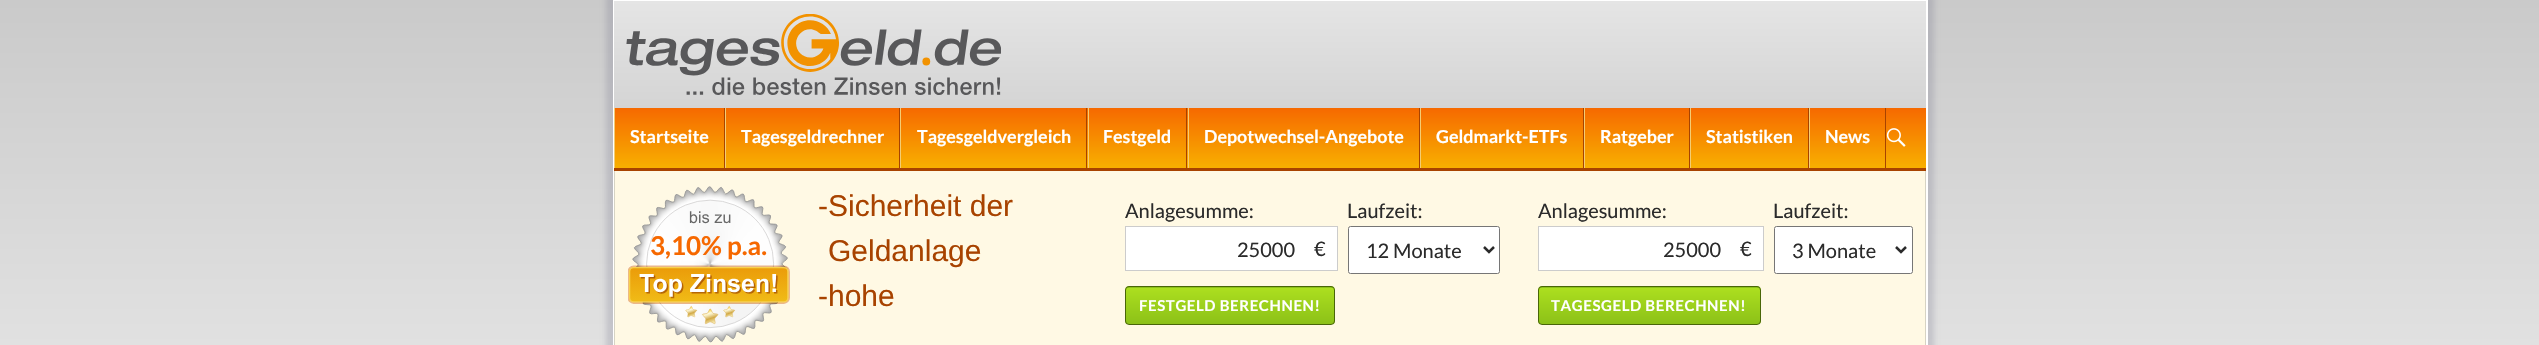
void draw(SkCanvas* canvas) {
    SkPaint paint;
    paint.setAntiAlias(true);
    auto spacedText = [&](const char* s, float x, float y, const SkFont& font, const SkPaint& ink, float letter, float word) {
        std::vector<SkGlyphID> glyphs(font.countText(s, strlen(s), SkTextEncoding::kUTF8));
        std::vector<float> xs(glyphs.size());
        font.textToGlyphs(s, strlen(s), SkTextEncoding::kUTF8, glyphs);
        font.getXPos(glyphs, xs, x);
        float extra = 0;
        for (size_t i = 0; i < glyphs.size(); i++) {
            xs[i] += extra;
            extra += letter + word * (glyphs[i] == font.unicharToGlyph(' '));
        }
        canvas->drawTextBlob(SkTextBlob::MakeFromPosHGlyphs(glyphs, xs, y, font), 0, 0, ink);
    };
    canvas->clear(0xFFFFFFFF);
    {
        const SkColor colors[] = {0xFFCACACA, 0xFFECECEC};
        const float stops[] = {0, 0.16f};
        const SkPoint ends[] = {{1270, 0}, {1270, 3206}};
        paint.setShader(SkGradientShader::MakeLinear(ends, colors, stops, 2, SkTileMode::kClamp));
        paint.setAlpha(255);
    }
    canvas->drawRect(SkRect::MakeXYWH(0, 0, 2539, 345), paint);
    paint.setShader(nullptr);
    paint.setColor(0x42707188);
    paint.setMaskFilter(SkMaskFilter::MakeBlur(kNormal_SkBlurStyle, 3));
    canvas->drawRect(SkRect::MakeXYWH(606, -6, 1328, 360), paint);
    paint.setMaskFilter(nullptr);
    paint.setColor(0xFFFFFFFF);
    canvas->drawRect(SkRect::MakeXYWH(613, 0, 1315, 345), paint);
    {
        const SkColor colors[] = {0xFFE5E5E5, 0xFFD4D4D4};
        const float stops[] = {0, 1};
        const SkPoint ends[] = {{1270, 1.2f}, {1270, 108}};
        paint.setShader(SkGradientShader::MakeLinear(ends, colors, stops, 2, SkTileMode::kClamp));
        paint.setAlpha(255);
    }
    canvas->drawRect(SkRect::MakeXYWH(614, 1, 1312, 107), paint);
    canvas->drawImageRect(SkImages::DeferredFromEncodedData(SkData::MakeFromFileName("img1.png")), SkRect::MakeXYWH(626, 14, 375, 81), SkSamplingOptions());
    {
        const SkColor colors[] = {0xFFF66800, 0xFFF8B200};
        const float stops[] = {0, 1};
        const SkPoint ends[] = {{1270, 107}, {1270, 170}};
        paint.setShader(SkGradientShader::MakeLinear(ends, colors, stops, 2, SkTileMode::kClamp));
        paint.setAlpha(255);
    }
    canvas->drawRect(SkRect::MakeXYWH(615, 108, 1311, 60), paint);
    paint.setShader(nullptr);
    paint.setColor(0xFFFFF9E4);
    canvas->drawRect(SkRect::MakeXYWH(614.5f, 170.5f, 1311, 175), paint);
    paint.setStyle(SkPaint::kStroke_Style);
    paint.setStrokeWidth(1);
    paint.setColor(0xFFD6D3C4);
    canvas->drawRect(SkRect::MakeXYWH(614.5f, 170.5f, 1311, 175), paint);
    paint.setStyle(SkPaint::kFill_Style);
    paint.setColor(0xFFA84300);
    canvas->drawRect(SkRect::MakeXYWH(614, 168, 1312, 3), paint);
    canvas->drawRect(SkRect::MakeXYWH(724, 108, 1, 60), paint);
    paint.setColor(0xFFF4CD74);
    canvas->drawRect(SkRect::MakeXYWH(614, 108, 1, 60), paint);
    SkFont font1(fontMgr->matchFamilyStyle("Lato", SkFontStyle::Bold()), 17.9f);
    font1.setSubpixel(true);
    paint.setColor(0xFFFFFFFF);
    canvas->drawString("Startseite", 630, 143, font1, paint);
    paint.setColor(0xFFA84300);
    canvas->drawRect(SkRect::MakeXYWH(899, 108, 1, 60), paint);
    paint.setColor(0xFFF4CD74);
    canvas->drawRect(SkRect::MakeXYWH(725, 108, 1, 60), paint);
    paint.setColor(0xFFFFFFFF);
    canvas->drawString("Tagesgeldrechner", 741, 143, font1, paint);
    paint.setColor(0xFFA84300);
    canvas->drawRect(SkRect::MakeXYWH(1086, 108, 1, 60), paint);
    paint.setColor(0xFFF4CD74);
    canvas->drawRect(SkRect::MakeXYWH(900, 108, 1, 60), paint);
    paint.setColor(0xFFFFFFFF);
    canvas->drawString("Tagesgeldvergleich", 917, 143, font1, paint);
    paint.setColor(0xFFA84300);
    canvas->drawRect(SkRect::MakeXYWH(1186, 108, 1, 60), paint);
    paint.setColor(0xFFF4CD74);
    canvas->drawRect(SkRect::MakeXYWH(1088, 108, 1, 60), paint);
    paint.setColor(0xFFFFFFFF);
    canvas->drawString("Festgeld", 1103, 143, font1, paint);
    paint.setColor(0xFFA84300);
    canvas->drawRect(SkRect::MakeXYWH(1419, 108, 1, 60), paint);
    paint.setColor(0xFFF4CD74);
    canvas->drawRect(SkRect::MakeXYWH(1188, 108, 1, 60), paint);
    paint.setColor(0xFFFFFFFF);
    canvas->drawString("Depotwechsel-Angebote", 1204, 143, font1, paint);
    paint.setColor(0xFFA84300);
    canvas->drawRect(SkRect::MakeXYWH(1583, 108, 1, 60), paint);
    paint.setColor(0xFFF4CD74);
    canvas->drawRect(SkRect::MakeXYWH(1420, 108, 1, 60), paint);
    paint.setColor(0xFFFFFFFF);
    canvas->drawString("Geldmarkt-ETFs", 1436, 143, font1, paint);
    paint.setColor(0xFFA84300);
    canvas->drawRect(SkRect::MakeXYWH(1689, 108, 1, 60), paint);
    paint.setColor(0xFFF4CD74);
    canvas->drawRect(SkRect::MakeXYWH(1584, 108, 1, 60), paint);
    paint.setColor(0xFFFFFFFF);
    canvas->drawString("Ratgeber", 1600, 143, font1, paint);
    paint.setColor(0xFFA84300);
    canvas->drawRect(SkRect::MakeXYWH(1808, 108, 1, 60), paint);
    paint.setColor(0xFFF4CD74);
    canvas->drawRect(SkRect::MakeXYWH(1690, 108, 1, 60), paint);
    paint.setColor(0xFFFFFFFF);
    canvas->drawString("Statistiken", 1706, 143, font1, paint);
    paint.setColor(0xFFA84300);
    canvas->drawRect(SkRect::MakeXYWH(1885, 108, 1, 60), paint);
    paint.setColor(0xFFF4CD74);
    canvas->drawRect(SkRect::MakeXYWH(1809, 108, 1, 60), paint);
    paint.setColor(0xFFFFFFFF);
    canvas->drawString("News", 1825, 143, font1, paint);
    canvas->drawImageRect(SkImages::DeferredFromEncodedData(SkData::MakeFromFileName("img2.png")), SkRect::MakeXYWH(1886, 128, 20, 19), SkSamplingOptions());
    canvas->drawImageRect(SkImages::DeferredFromEncodedData(SkData::MakeFromFileName("img3.png")), SkRect::MakeXYWH(628, 186, 162, 157), SkSamplingOptions());
    SkFont font2(fontMgr->matchFamilyStyle("Lato", SkFontStyle::Bold()), 26);
    font2.setSubpixel(true);
    paint.setColor(0xFFF66800);
    canvas->drawString("3,10% p.a.", 650, 255, font2, paint);
    SkFont font3(fontMgr->matchFamilyStyle("Liberation Sans", SkFontStyle::Normal()), 30);
    font3.setSubpixel(true);
    paint.setColor(0xFFA84300);
    canvas->drawString("-Sicherheit der", 818, 216, font3, paint);
    canvas->drawString("Geldanlage", 828, 261, font3, paint);
    canvas->drawString("-hohe", 818, 306, font3, paint);
    SkFont font4(fontMgr->matchFamilyStyle("Lato", SkFontStyle::Normal()), 20);
    font4.setSubpixel(true);
    paint.setColor(0xFF2B2B2B);
    canvas->drawString("Anlagesumme:", 1125, 218, font4, paint);
    paint.setColor(0xFFFFFFFF);
    canvas->drawRect(SkRect::MakeXYWH(1125.5f, 226.5f, 212, 44), paint);
    paint.setStyle(SkPaint::kStroke_Style);
    paint.setColor(0xFFCCCCCC);
    canvas->drawRect(SkRect::MakeXYWH(1125.5f, 226.5f, 212, 44), paint);
    paint.setStyle(SkPaint::kFill_Style);
    paint.setColor(0xFF2B2B2B);
    canvas->drawString("25000", 1237, 257, font4, paint);
    canvas->drawString("€", 1314, 256, font4, paint);
    canvas->drawString("Laufzeit:", 1347, 218, font4, paint);
    paint.setColor(0xFFFFFFFF);
    canvas->drawRoundRect(SkRect::MakeXYWH(1348.5f, 226.5f, 151, 47), 2, 2, paint);
    paint.setStyle(SkPaint::kStroke_Style);
    paint.setColor(0xFF767676);
    canvas->drawRoundRect(SkRect::MakeXYWH(1348.5f, 226.5f, 151, 47), 2, 2, paint);
    paint.setStrokeWidth(2.5f);
    paint.setColor(0xFF2B2B2B);
    canvas->drawPath(SkPathBuilder().moveTo(1484, 247).lineTo(1489, 252).lineTo(1494, 247).detach(), paint);
    paint.setStyle(SkPaint::kFill_Style);
    canvas->drawString("12 Monate", 1366, 258, font4, paint);
    canvas->save();
    canvas->clipPath(SkPathBuilder().moveTo(1129, 286).lineTo(1331, 286).cubicTo(1333, 286, 1335, 288, 1335, 290).lineTo(1335, 321).cubicTo(1335, 323, 1333, 325, 1331, 325).lineTo(1129, 325).cubicTo(1127, 325, 1125, 323, 1125, 321).lineTo(1125, 290).cubicTo(1125, 288, 1127, 286, 1129, 286).close().detach(), true);
    {
        const SkColor colors[] = {0xFFACDF1F, 0xFF8CC118};
        const float stops[] = {0, 1};
        const SkPoint ends[] = {{1230, 251}, {1230, 288}};
        paint.setShader(SkGradientShader::MakeLinear(ends, colors, stops, 2, SkTileMode::kClamp));
        paint.setAlpha(255);
    }
    canvas->drawRect(SkRect::MakeXYWH(1125, 286, 210, 2), paint);
    {
        const SkColor colors[] = {0xFFACDF1F, 0xFF8CC118};
        const float stops[] = {0, 1};
        const SkPoint ends[] = {{1230, 288}, {1230, 324}};
        paint.setShader(SkGradientShader::MakeLinear(ends, colors, stops, 2, SkTileMode::kClamp));
        paint.setAlpha(255);
    }
    canvas->drawRect(SkRect::MakeXYWH(1125, 288, 210, 36), paint);
    canvas->restore();
    paint.setStyle(SkPaint::kStroke_Style);
    paint.setStrokeWidth(1);
    paint.setShader(nullptr);
    paint.setColor(0xFF496608);
    canvas->drawRoundRect(SkRect::MakeXYWH(1125.5f, 286.5f, 209, 38), 3.5f, 3.5f, paint);
    SkFont font5(fontMgr->matchFamilyStyle("Lato", SkFontStyle::Bold()), 15);
    font5.setSubpixel(true);
    paint.setStyle(SkPaint::kFill_Style);
    paint.setColor(0xFFFFFFFF);
    spacedText("FESTGELD BERECHNEN!", 1139, 311, font5, paint, 0.6f, 0);
    paint.setColor(0xFF2B2B2B);
    canvas->drawString("Anlagesumme:", 1538, 218, font4, paint);
    paint.setColor(0xFFFFFFFF);
    canvas->drawRect(SkRect::MakeXYWH(1538.5f, 226.5f, 225, 44), paint);
    paint.setStyle(SkPaint::kStroke_Style);
    paint.setColor(0xFFCCCCCC);
    canvas->drawRect(SkRect::MakeXYWH(1538.5f, 226.5f, 225, 44), paint);
    paint.setStyle(SkPaint::kFill_Style);
    paint.setColor(0xFF2B2B2B);
    canvas->drawString("25000", 1663, 257, font4, paint);
    canvas->drawString("€", 1740, 256, font4, paint);
    canvas->drawString("Laufzeit:", 1773, 218, font4, paint);
    paint.setColor(0xFFFFFFFF);
    canvas->drawRoundRect(SkRect::MakeXYWH(1774.5f, 226.5f, 138, 47), 2, 2, paint);
    paint.setStyle(SkPaint::kStroke_Style);
    paint.setColor(0xFF767676);
    canvas->drawRoundRect(SkRect::MakeXYWH(1774.5f, 226.5f, 138, 47), 2, 2, paint);
    paint.setStrokeWidth(2.5f);
    paint.setColor(0xFF2B2B2B);
    canvas->drawPath(SkPathBuilder().moveTo(1896, 247).lineTo(1901, 252).lineTo(1906, 247).detach(), paint);
    paint.setStyle(SkPaint::kFill_Style);
    canvas->drawString("3 Monate", 1792, 258, font4, paint);
    canvas->save();
    canvas->clipPath(SkPathBuilder().moveTo(1542, 286).lineTo(1757, 286).cubicTo(1759, 286, 1761, 288, 1761, 290).lineTo(1761, 321).cubicTo(1761, 323, 1759, 325, 1757, 325).lineTo(1542, 325).cubicTo(1540, 325, 1538, 323, 1538, 321).lineTo(1538, 290).cubicTo(1538, 288, 1540, 286, 1542, 286).close().detach(), true);
    {
        const SkColor colors[] = {0xFFACDF1F, 0xFF8CC118};
        const float stops[] = {0, 1};
        const SkPoint ends[] = {{1649, 251}, {1649, 288}};
        paint.setShader(SkGradientShader::MakeLinear(ends, colors, stops, 2, SkTileMode::kClamp));
        paint.setAlpha(255);
    }
    canvas->drawRect(SkRect::MakeXYWH(1538, 286, 223, 2), paint);
    {
        const SkColor colors[] = {0xFFACDF1F, 0xFF8CC118};
        const float stops[] = {0, 1};
        const SkPoint ends[] = {{1649, 288}, {1649, 324}};
        paint.setShader(SkGradientShader::MakeLinear(ends, colors, stops, 2, SkTileMode::kClamp));
        paint.setAlpha(255);
    }
    canvas->drawRect(SkRect::MakeXYWH(1538, 288, 223, 36), paint);
    canvas->restore();
    paint.setStyle(SkPaint::kStroke_Style);
    paint.setStrokeWidth(1);
    paint.setShader(nullptr);
    paint.setColor(0xFF496608);
    canvas->drawRoundRect(SkRect::MakeXYWH(1538.5f, 286.5f, 222, 38), 3.5f, 3.5f, paint);
    paint.setStyle(SkPaint::kFill_Style);
    paint.setColor(0xFFFFFFFF);
    spacedText("TAGESGELD BERECHNEN!", 1551, 311, font5, paint, 0.6f, 0);
}
